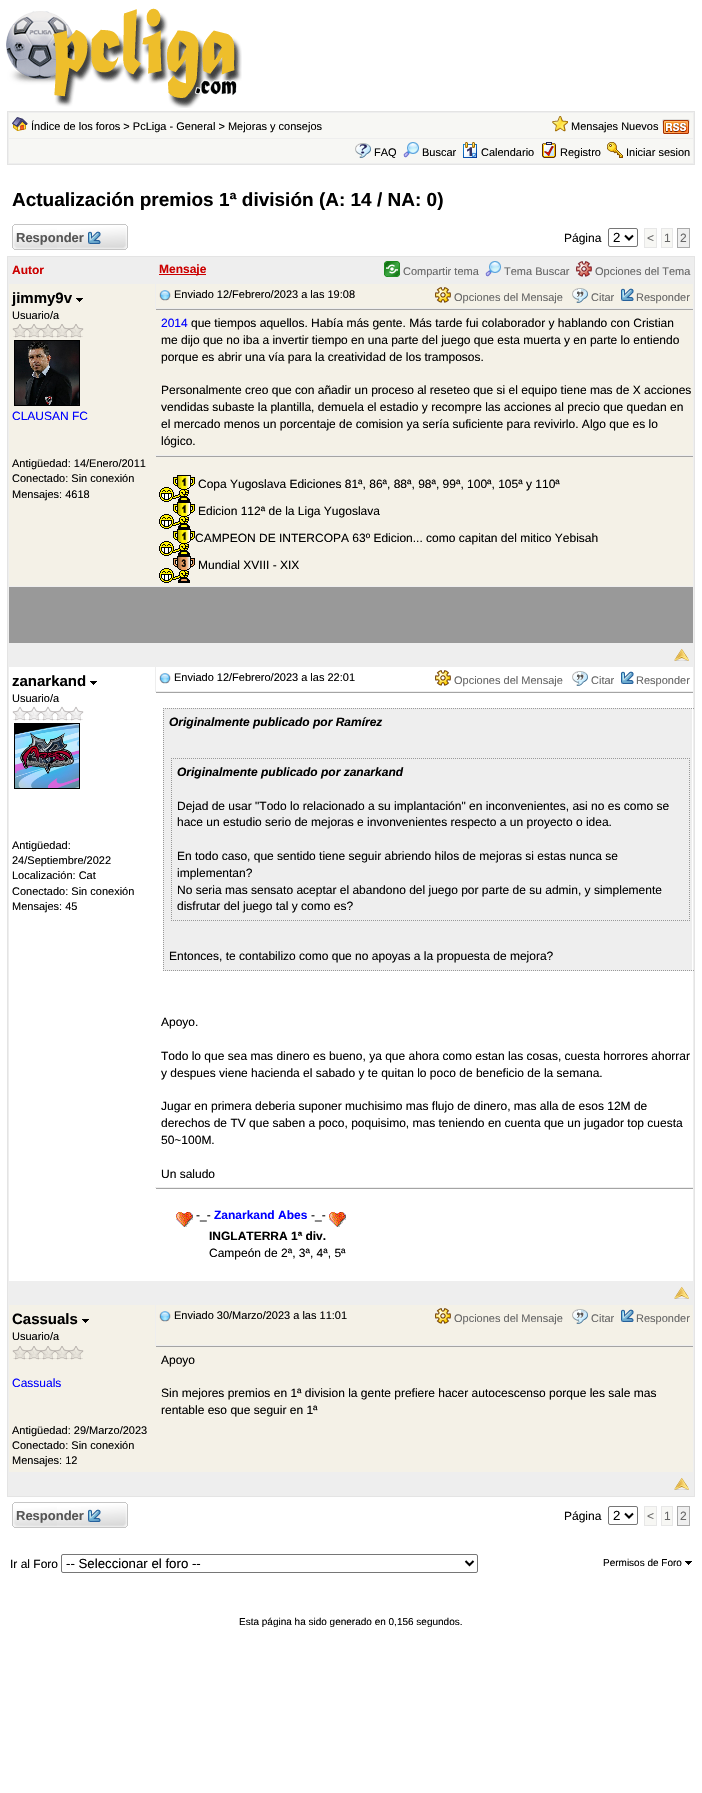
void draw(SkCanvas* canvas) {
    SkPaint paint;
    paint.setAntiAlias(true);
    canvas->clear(0xFFFFFFFF);
    canvas->drawImageRect(SkImages::DeferredFromEncodedData(SkData::MakeFromFileName("img1.png")), SkRect::MakeXYWH(6, 8, 236, 100), SkSamplingOptions());
    paint.setColor(0xFFEEEEEE);
    canvas->drawRect(SkRect::MakeXYWH(7.5f, 111.5f, 687, 53), paint);
    paint.setStyle(SkPaint::kStroke_Style);
    paint.setStrokeWidth(1);
    paint.setColor(0xFFE4E4E4);
    canvas->drawRect(SkRect::MakeXYWH(7.5f, 111.5f, 687, 53), paint);
    paint.setStyle(SkPaint::kFill_Style);
    paint.setColor(0xFFF7F7F4);
    canvas->drawRect(SkRect::MakeXYWH(9, 113, 684, 25), paint);
    canvas->drawImageRect(SkImages::DeferredFromEncodedData(SkData::MakeFromFileName("img2.png")), SkRect::MakeXYWH(12, 117, 16, 14), SkSamplingOptions());
    SkFont font1(fontMgr->matchFamilyStyle("Liberation Sans", SkFontStyle::Normal()), 11);
    font1.setSubpixel(true);
    paint.setColor(0xFF000000);
    canvas->drawString("Índice de los foros > PcLiga - General > Mejoras y consejos", 31, 130, font1, paint);
    canvas->drawImageRect(SkImages::DeferredFromEncodedData(SkData::MakeFromFileName("img3.png")), SkRect::MakeXYWH(552, 116, 16, 16), SkSamplingOptions());
    canvas->drawString("Mensajes Nuevos", 571, 130, font1, paint);
    canvas->drawImageRect(SkImages::DeferredFromEncodedData(SkData::MakeFromFileName("img4.png")), SkRect::MakeXYWH(662, 119, 28, 16), SkSamplingOptions());
    paint.setColor(0xFFF7F7F4);
    canvas->drawRect(SkRect::MakeXYWH(9, 139, 684, 24), paint);
    canvas->drawImageRect(SkImages::DeferredFromEncodedData(SkData::MakeFromFileName("img5.png")), SkRect::MakeXYWH(355, 143, 16, 15), SkSamplingOptions());
    paint.setColor(0xFF000000);
    canvas->drawString("FAQ", 374, 156, font1, paint);
    canvas->drawImageRect(SkImages::DeferredFromEncodedData(SkData::MakeFromFileName("img6.png")), SkRect::MakeXYWH(403, 142, 16, 16), SkSamplingOptions());
    canvas->drawString("Buscar", 422, 156, font1, paint);
    canvas->drawImageRect(SkImages::DeferredFromEncodedData(SkData::MakeFromFileName("img7.png")), SkRect::MakeXYWH(463, 142, 14, 16), SkSamplingOptions());
    canvas->drawString("Calendario", 481, 156, font1, paint);
    canvas->drawImageRect(SkImages::DeferredFromEncodedData(SkData::MakeFromFileName("img8.png")), SkRect::MakeXYWH(542, 142, 14, 16), SkSamplingOptions());
    canvas->drawString("Registro", 560, 156, font1, paint);
    canvas->drawImageRect(SkImages::DeferredFromEncodedData(SkData::MakeFromFileName("img9.png")), SkRect::MakeXYWH(607, 142, 16, 16), SkSamplingOptions());
    canvas->drawString("Iniciar sesion", 626, 156, font1, paint);
    SkFont font2(fontMgr->matchFamilyStyle("Liberation Sans", SkFontStyle::Bold()), 19);
    font2.setSubpixel(true);
    canvas->drawString("Actualización premios 1ª división (A: 14 / NA: 0)", 12, 206, font2, paint);
    canvas->drawImageRect(SkImages::DeferredFromEncodedData(SkData::MakeFromFileName("img10.png")), SkRect::MakeXYWH(12, 224, 116, 26), SkSamplingOptions());
    SkFont font3(fontMgr->matchFamilyStyle("Liberation Sans", SkFontStyle::Bold()), 13);
    font3.setSubpixel(true);
    paint.setColor(0xFF555555);
    canvas->drawString("Responder", 16, 242, font3, paint);
    canvas->drawImageRect(SkImages::DeferredFromEncodedData(SkData::MakeFromFileName("img11.png")), SkRect::MakeXYWH(88, 231, 13, 13), SkSamplingOptions());
    SkFont font4(fontMgr->matchFamilyStyle("Liberation Sans", SkFontStyle::Normal()), 12);
    font4.setSubpixel(true);
    paint.setColor(0xFF000000);
    canvas->drawString("Página", 564, 242, font4, paint);
    paint.setStyle(SkPaint::kStroke_Style);
    paint.setColor(0xFF767676);
    canvas->drawRoundRect(SkRect::MakeXYWH(608.5f, 228.5f, 29, 18), 1.5f, 1.5f, paint);
    paint.setStrokeWidth(2);
    paint.setColor(0xFF000000);
    canvas->drawPath(SkPathBuilder().moveTo(625, 235.5f).lineTo(629, 239.5f).lineTo(633, 235.5f).detach(), paint);
    SkFont font5(fontMgr->matchFamilyStyle("Liberation Sans", SkFontStyle::Normal()), 13.25f);
    font5.setSubpixel(true);
    paint.setStyle(SkPaint::kFill_Style);
    canvas->drawString("2", 613, 242, font5, paint);
    paint.setColor(0xFFF7F7F4);
    canvas->drawRect(SkRect::MakeXYWH(644.5f, 228.5f, 12, 19), paint);
    paint.setStyle(SkPaint::kStroke_Style);
    paint.setStrokeWidth(1);
    paint.setColor(0xFFE7E7E7);
    canvas->drawRect(SkRect::MakeXYWH(644.5f, 228.5f, 12, 19), paint);
    paint.setStyle(SkPaint::kFill_Style);
    paint.setColor(0xFF666666);
    canvas->drawString("<", 647, 242, font4, paint);
    paint.setColor(0xFFF7F7F4);
    canvas->drawRect(SkRect::MakeXYWH(661.5f, 228.5f, 11, 19), paint);
    paint.setStyle(SkPaint::kStroke_Style);
    paint.setColor(0xFFE7E7E7);
    canvas->drawRect(SkRect::MakeXYWH(661.5f, 228.5f, 11, 19), paint);
    paint.setStyle(SkPaint::kFill_Style);
    paint.setColor(0xFF666666);
    canvas->drawString("1", 664, 242, font4, paint);
    paint.setColor(0xFFEFEFEF);
    canvas->drawRect(SkRect::MakeXYWH(677.5f, 228.5f, 12, 19), paint);
    paint.setStyle(SkPaint::kStroke_Style);
    paint.setColor(0xFFAAAAAA);
    canvas->drawRect(SkRect::MakeXYWH(677.5f, 228.5f, 12, 19), paint);
    paint.setStyle(SkPaint::kFill_Style);
    paint.setColor(0xFF666666);
    canvas->drawString("2", 680, 242, font4, paint);
    paint.setColor(0xFFEEEEEE);
    canvas->drawRect(SkRect::MakeXYWH(7.5f, 256.5f, 687, 1240), paint);
    paint.setStyle(SkPaint::kStroke_Style);
    paint.setColor(0xFFE4E4E4);
    canvas->drawRect(SkRect::MakeXYWH(7.5f, 256.5f, 687, 1240), paint);
    SkFont font6(fontMgr->matchFamilyStyle("Liberation Sans", SkFontStyle::Bold()), 12);
    font6.setSubpixel(true);
    paint.setStyle(SkPaint::kFill_Style);
    paint.setColor(0xFFCC0000);
    canvas->drawString("Autor", 12, 274, font6, paint);
    canvas->drawRect(SkRect::MakeXYWH(159, 274, 47, 1), paint);
    canvas->drawString("Mensaje", 159, 273, font6, paint);
    canvas->drawImageRect(SkImages::DeferredFromEncodedData(SkData::MakeFromFileName("img12.png")), SkRect::MakeXYWH(384, 261, 16, 16), SkSamplingOptions());
    paint.setColor(0xFF666666);
    canvas->drawString("Compartir tema", 403, 275, font1, paint);
    canvas->drawImageRect(SkImages::DeferredFromEncodedData(SkData::MakeFromFileName("img13.png")), SkRect::MakeXYWH(485, 261, 16, 16), SkSamplingOptions());
    canvas->drawString("Tema Buscar", 504, 275, font1, paint);
    canvas->drawImageRect(SkImages::DeferredFromEncodedData(SkData::MakeFromFileName("img14.png")), SkRect::MakeXYWH(576, 261, 16, 16), SkSamplingOptions());
    canvas->drawString("Opciones del Tema", 595, 275, font1, paint);
    paint.setColor(0xFFF4F1E7);
    canvas->drawRect(SkRect::MakeXYWH(9, 284, 146, 172), paint);
    SkFont font7(fontMgr->matchFamilyStyle("Liberation Sans", SkFontStyle::Bold()), 15);
    font7.setSubpixel(true);
    paint.setColor(0xFF000000);
    canvas->drawString("jimmy9v", 12, 303, font7, paint);
    canvas->drawImageRect(SkImages::DeferredFromEncodedData(SkData::MakeFromFileName("img15.png")), SkRect::MakeXYWH(76, 298, 7, 4), SkSamplingOptions());
    canvas->drawString("Usuario/a", 12, 319, font1, paint);
    canvas->drawImageRect(SkImages::DeferredFromEncodedData(SkData::MakeFromFileName("img16.png")), SkRect::MakeXYWH(12, 324, 72, 14), SkSamplingOptions());
    paint.setStyle(SkPaint::kStroke_Style);
    canvas->drawRect(SkRect::MakeXYWH(14.5f, 340.5f, 65, 65), paint);
    canvas->drawImageRect(SkImages::DeferredFromEncodedData(SkData::MakeFromFileName("img17.png")), SkRect::MakeXYWH(15, 341, 64, 64), SkSamplingOptions());
    paint.setStyle(SkPaint::kFill_Style);
    paint.setColor(0xFF0000FF);
    canvas->drawString("CLAUSAN FC", 12, 420, font4, paint);
    paint.setColor(0xFFF4F1E7);
    canvas->drawRect(SkRect::MakeXYWH(9, 456, 684, 130), paint);
    paint.setColor(0xFF000000);
    canvas->drawString("Antigüedad: 14/Enero/2011", 12, 467, font1, paint);
    canvas->drawString("Conectado: Sin conexión", 12, 482, font1, paint);
    canvas->drawString("Mensajes: 4618", 12, 498, font1, paint);
    paint.setColor(0xFFF4F1E7);
    canvas->drawRect(SkRect::MakeXYWH(156, 284, 537, 24), paint);
    canvas->drawImageRect(SkImages::DeferredFromEncodedData(SkData::MakeFromFileName("img18.png")), SkRect::MakeXYWH(159, 290, 12, 11), SkSamplingOptions());
    paint.setColor(0xFF000000);
    canvas->drawString("Enviado 12/Febrero/2023 a las 19:08", 174, 298, font1, paint);
    canvas->drawImageRect(SkImages::DeferredFromEncodedData(SkData::MakeFromFileName("img19.png")), SkRect::MakeXYWH(435, 287, 16, 16), SkSamplingOptions());
    paint.setColor(0xFF666666);
    canvas->drawString("Opciones del Mensaje", 454, 301, font1, paint);
    canvas->drawImageRect(SkImages::DeferredFromEncodedData(SkData::MakeFromFileName("img20.png")), SkRect::MakeXYWH(572, 288, 16, 15), SkSamplingOptions());
    canvas->drawString("Citar", 591, 301, font1, paint);
    canvas->drawImageRect(SkImages::DeferredFromEncodedData(SkData::MakeFromFileName("img21.png")), SkRect::MakeXYWH(621, 288, 13, 13), SkSamplingOptions());
    canvas->drawString("Responder", 636, 301, font1, paint);
    paint.setColor(0xFFF4F1E7);
    canvas->drawRect(SkRect::MakeXYWH(155, 309, 538, 146), paint);
    paint.setColor(0xFFA4A4A4);
    canvas->drawRect(SkRect::MakeXYWH(156, 309, 537, 1), paint);
    paint.setColor(0xFF0000FF);
    canvas->drawString("2014", 161, 327, font4, paint);
    paint.setColor(0xFF000000);
    canvas->drawString("que tiempos aquellos. Había más gente. Más tarde fui colaborador y hablando con Cristian", 191, 327, font4, paint);
    canvas->drawString("me dijo que no iba a invertir tiempo en una parte del juego que esta muerta y en parte lo entiendo", 161, 344, font4, paint);
    canvas->drawString("porque es abrir una vía para la creatividad de los tramposos.", 161, 361, font4, paint);
    canvas->drawString("Personalmente creo que con añadir un proceso al reseteo que si el equipo tiene mas de X acciones", 161, 394, font4, paint);
    canvas->drawString("vendidas subaste la plantilla, demuela el estadio y recompre las acciones al precio que quedan en", 161, 411, font4, paint);
    canvas->drawString("el mercado menos un porcentaje de comision ya sería suficiente para revivirlo. Algo que es lo", 161, 428, font4, paint);
    canvas->drawString("lógico.", 161, 445, font4, paint);
    paint.setColor(0xFFA4A4A4);
    canvas->drawRect(SkRect::MakeXYWH(156, 456, 537, 1), paint);
    canvas->drawImageRect(SkImages::DeferredFromEncodedData(SkData::MakeFromFileName("img22.png")), SkRect::MakeXYWH(159, 475, 36, 27), SkSamplingOptions());
    paint.setColor(0xFF000000);
    canvas->drawString("Copa Yugoslava Ediciones 81ª, 86ª, 88ª, 98ª, 99ª, 100ª, 105ª y 110ª", 198, 488, font4, paint);
    canvas->drawImageRect(SkImages::DeferredFromEncodedData(SkData::MakeFromFileName("img22.png")), SkRect::MakeXYWH(159, 502, 36, 27), SkSamplingOptions());
    canvas->drawString("Edicion 112ª de la Liga Yugoslava", 198, 515, font4, paint);
    canvas->drawImageRect(SkImages::DeferredFromEncodedData(SkData::MakeFromFileName("img22.png")), SkRect::MakeXYWH(159, 529, 36, 27), SkSamplingOptions());
    canvas->drawString("CAMPEON DE INTERCOPA 63º Edicion... como capitan del mitico Yebisah", 195, 542, font4, paint);
    canvas->drawImageRect(SkImages::DeferredFromEncodedData(SkData::MakeFromFileName("img23.png")), SkRect::MakeXYWH(159, 556, 36, 27), SkSamplingOptions());
    canvas->drawString("Mundial XVIII - XIX", 198, 569, font4, paint);
    paint.setColor(0xFF999999);
    canvas->drawRect(SkRect::MakeXYWH(9, 587, 684, 56), paint);
    canvas->drawImageRect(SkImages::DeferredFromEncodedData(SkData::MakeFromFileName("img24.png")), SkRect::MakeXYWH(674, 649, 15, 12), SkSamplingOptions());
    paint.setColor(0xFFFFFFFF);
    canvas->drawRect(SkRect::MakeXYWH(9, 667, 146, 521), paint);
    paint.setColor(0xFF000000);
    canvas->drawString("zanarkand", 12, 686, font7, paint);
    canvas->drawImageRect(SkImages::DeferredFromEncodedData(SkData::MakeFromFileName("img25.png")), SkRect::MakeXYWH(90, 681, 7, 4), SkSamplingOptions());
    canvas->drawString("Usuario/a", 12, 702, font1, paint);
    canvas->drawImageRect(SkImages::DeferredFromEncodedData(SkData::MakeFromFileName("img26.png")), SkRect::MakeXYWH(12, 706, 72, 15), SkSamplingOptions());
    paint.setStyle(SkPaint::kStroke_Style);
    canvas->drawRect(SkRect::MakeXYWH(14.5f, 723.5f, 65, 65), paint);
    canvas->drawImageRect(SkImages::DeferredFromEncodedData(SkData::MakeFromFileName("img27.png")), SkRect::MakeXYWH(15, 724, 64, 64), SkSamplingOptions());
    paint.setStyle(SkPaint::kFill_Style);
    canvas->drawString("Antigüedad:", 12, 849, font1, paint);
    canvas->drawString("24/Septiembre/2022", 12, 864, font1, paint);
    canvas->drawString("Localización: Cat", 12, 879, font1, paint);
    canvas->drawString("Conectado: Sin conexión", 12, 895, font1, paint);
    canvas->drawString("Mensajes: 45", 12, 910, font1, paint);
    paint.setColor(0xFFFFFFFF);
    canvas->drawRect(SkRect::MakeXYWH(156, 667, 537, 24), paint);
    canvas->drawImageRect(SkImages::DeferredFromEncodedData(SkData::MakeFromFileName("img28.png")), SkRect::MakeXYWH(159, 672, 12, 12), SkSamplingOptions());
    paint.setColor(0xFF000000);
    canvas->drawString("Enviado 12/Febrero/2023 a las 22:01", 174, 681, font1, paint);
    canvas->drawImageRect(SkImages::DeferredFromEncodedData(SkData::MakeFromFileName("img29.png")), SkRect::MakeXYWH(435, 670, 16, 16), SkSamplingOptions());
    paint.setColor(0xFF666666);
    canvas->drawString("Opciones del Mensaje", 454, 684, font1, paint);
    canvas->drawImageRect(SkImages::DeferredFromEncodedData(SkData::MakeFromFileName("img30.png")), SkRect::MakeXYWH(572, 671, 16, 15), SkSamplingOptions());
    canvas->drawString("Citar", 591, 684, font1, paint);
    canvas->drawImageRect(SkImages::DeferredFromEncodedData(SkData::MakeFromFileName("img31.png")), SkRect::MakeXYWH(621, 671, 13, 13), SkSamplingOptions());
    canvas->drawString("Responder", 636, 684, font1, paint);
    paint.setColor(0xFFFFFFFF);
    canvas->drawRect(SkRect::MakeXYWH(155, 692, 538, 495), paint);
    paint.setColor(0xFFA4A4A4);
    canvas->drawRect(SkRect::MakeXYWH(156, 692, 537, 1), paint);
    paint.setColor(0xFFEEEEEE);
    canvas->drawRect(SkRect::MakeXYWH(163, 708, 529, 263), paint);
    paint.setStyle(SkPaint::kStroke_Style);
    paint.setColor(0xFF999999);
    paint.setPathEffect(SkDashPathEffect::Make({{1, 1}}, 0));
    canvas->drawPath(SkPathBuilder().moveTo(163, 708.5f).lineTo(694, 708.5f).detach(), paint);
    paint.setPathEffect(nullptr);
    paint.setPathEffect(SkDashPathEffect::Make({{1, 1}}, 0));
    canvas->drawPath(SkPathBuilder().moveTo(163, 970.5f).lineTo(694, 970.5f).detach(), paint);
    paint.setPathEffect(nullptr);
    paint.setPathEffect(SkDashPathEffect::Make({{1, 1}}, 0));
    canvas->drawPath(SkPathBuilder().moveTo(163.5f, 708).lineTo(163.5f, 971).detach(), paint);
    paint.setPathEffect(nullptr);
    SkFont font8(fontMgr->matchFamilyStyle("Liberation Sans", SkFontStyle::BoldItalic()), 12);
    font8.setSubpixel(true);
    paint.setStyle(SkPaint::kFill_Style);
    paint.setColor(0xFF000000);
    canvas->drawString("Originalmente publicado por Ramírez", 169, 726, font8, paint);
    paint.setStyle(SkPaint::kStroke_Style);
    paint.setColor(0xFF999999);
    paint.setPathEffect(SkDashPathEffect::Make({{1, 1}}, 0));
    canvas->drawPath(SkPathBuilder().moveTo(171, 758.5f).lineTo(690, 758.5f).detach(), paint);
    paint.setPathEffect(nullptr);
    paint.setPathEffect(SkDashPathEffect::Make({{1, 1}}, 0));
    canvas->drawPath(SkPathBuilder().moveTo(689.5f, 758).lineTo(689.5f, 921).detach(), paint);
    paint.setPathEffect(nullptr);
    paint.setPathEffect(SkDashPathEffect::Make({{1, 1}}, 0));
    canvas->drawPath(SkPathBuilder().moveTo(171, 920.5f).lineTo(690, 920.5f).detach(), paint);
    paint.setPathEffect(nullptr);
    paint.setPathEffect(SkDashPathEffect::Make({{1, 1}}, 0));
    canvas->drawPath(SkPathBuilder().moveTo(171.5f, 758).lineTo(171.5f, 921).detach(), paint);
    paint.setPathEffect(nullptr);
    paint.setStyle(SkPaint::kFill_Style);
    paint.setColor(0xFF000000);
    canvas->drawString("Originalmente publicado por zanarkand", 177, 776, font8, paint);
    canvas->drawString("Dejad de usar \"Todo lo relacionado a su implantación\" en inconvenientes, asi no es como se", 177, 810, font4, paint);
    canvas->drawString("hace un estudio serio de mejoras e invonvenientes respecto a un proyecto o idea.", 177, 826, font4, paint);
    canvas->drawString("En todo caso, que sentido tiene seguir abriendo hilos de mejoras si estas nunca se", 177, 860, font4, paint);
    canvas->drawString("implementan?", 177, 877, font4, paint);
    canvas->drawString("No seria mas sensato aceptar el abandono del juego por parte de su admin, y simplemente", 177, 894, font4, paint);
    canvas->drawString("disfrutar del juego tal y como es?", 177, 910, font4, paint);
    canvas->drawString("Entonces, te contabilizo como que no apoyas a la propuesta de mejora?", 169, 960, font4, paint);
    canvas->drawString("Apoyo.", 161, 1026, font4, paint);
    canvas->drawString("Todo lo que sea mas dinero es bueno, ya que ahora como estan las cosas, cuesta horrores ahorrar", 161, 1060, font4, paint);
    canvas->drawString("y despues viene hacienda el sabado y te quitan lo poco de beneficio de la semana.", 161, 1077, font4, paint);
    canvas->drawString("Jugar en primera deberia suponer muchisimo mas flujo de dinero, mas alla de esos 12M de", 161, 1110, font4, paint);
    canvas->drawString("derechos de TV que saben a poco, poquisimo, mas teniendo en cuenta que un jugador top cuesta", 161, 1127, font4, paint);
    canvas->drawString("50~100M.", 161, 1144, font4, paint);
    canvas->drawString("Un saludo", 161, 1178, font4, paint);
    paint.setColor(0xFFFFFFFF);
    canvas->drawRect(SkRect::MakeXYWH(9, 1188, 684, 93), paint);
    paint.setColor(0xFFA4A4A4);
    canvas->drawRect(SkRect::MakeXYWH(156, 1188, 537, 1), paint);
    canvas->drawImageRect(SkImages::DeferredFromEncodedData(SkData::MakeFromFileName("img32.png")), SkRect::MakeXYWH(176, 1212, 17, 15), SkSamplingOptions());
    paint.setColor(0xFF000000);
    canvas->drawString("-_-", 196, 1219, font4, paint);
    paint.setColor(0xFF0000FF);
    canvas->drawString("Zanarkand Abes", 214, 1219, font6, paint);
    paint.setColor(0xFF000000);
    canvas->drawString("-_-", 311, 1219, font4, paint);
    canvas->drawImageRect(SkImages::DeferredFromEncodedData(SkData::MakeFromFileName("img32.png")), SkRect::MakeXYWH(329, 1212, 17, 15), SkSamplingOptions());
    canvas->drawString("INGLATERRA 1ª div.", 209, 1240, font6, paint);
    canvas->drawString("Campeón de 2ª, 3ª, 4ª, 5ª", 209, 1257, font4, paint);
    canvas->drawImageRect(SkImages::DeferredFromEncodedData(SkData::MakeFromFileName("img24.png")), SkRect::MakeXYWH(674, 1287, 15, 12), SkSamplingOptions());
    paint.setColor(0xFFF4F1E7);
    canvas->drawRect(SkRect::MakeXYWH(9, 1305, 146, 41), paint);
    paint.setColor(0xFF000000);
    canvas->drawString("Cassuals", 12, 1324, font7, paint);
    canvas->drawImageRect(SkImages::DeferredFromEncodedData(SkData::MakeFromFileName("img15.png")), SkRect::MakeXYWH(82, 1319, 7, 4), SkSamplingOptions());
    canvas->drawString("Usuario/a", 12, 1340, font1, paint);
    paint.setColor(0xFFF4F1E7);
    canvas->drawRect(SkRect::MakeXYWH(9, 1346, 684, 126), paint);
    canvas->drawImageRect(SkImages::DeferredFromEncodedData(SkData::MakeFromFileName("img16.png")), SkRect::MakeXYWH(12, 1346, 72, 14), SkSamplingOptions());
    paint.setColor(0xFF0000FF);
    canvas->drawString("Cassuals", 12, 1387, font4, paint);
    paint.setColor(0xFF000000);
    canvas->drawString("Antigüedad: 29/Marzo/2023", 12, 1434, font1, paint);
    canvas->drawString("Conectado: Sin conexión", 12, 1449, font1, paint);
    canvas->drawString("Mensajes: 12", 12, 1464, font1, paint);
    paint.setColor(0xFFF4F1E7);
    canvas->drawRect(SkRect::MakeXYWH(156, 1305, 537, 40), paint);
    canvas->drawImageRect(SkImages::DeferredFromEncodedData(SkData::MakeFromFileName("img18.png")), SkRect::MakeXYWH(159, 1311, 12, 11), SkSamplingOptions());
    paint.setColor(0xFF000000);
    canvas->drawString("Enviado 30/Marzo/2023 a las 11:01", 174, 1319, font1, paint);
    canvas->drawImageRect(SkImages::DeferredFromEncodedData(SkData::MakeFromFileName("img19.png")), SkRect::MakeXYWH(435, 1308, 16, 16), SkSamplingOptions());
    paint.setColor(0xFF666666);
    canvas->drawString("Opciones del Mensaje", 454, 1322, font1, paint);
    canvas->drawImageRect(SkImages::DeferredFromEncodedData(SkData::MakeFromFileName("img20.png")), SkRect::MakeXYWH(572, 1309, 16, 15), SkSamplingOptions());
    canvas->drawString("Citar", 591, 1322, font1, paint);
    canvas->drawImageRect(SkImages::DeferredFromEncodedData(SkData::MakeFromFileName("img21.png")), SkRect::MakeXYWH(621, 1309, 13, 13), SkSamplingOptions());
    canvas->drawString("Responder", 636, 1322, font1, paint);
    paint.setColor(0xFFA4A4A4);
    canvas->drawRect(SkRect::MakeXYWH(156, 1346, 537, 1), paint);
    paint.setColor(0xFF000000);
    canvas->drawString("Apoyo", 161, 1364, font4, paint);
    canvas->drawString("Sin mejores premios en 1ª division la gente prefiere hacer autocescenso porque les sale mas", 161, 1397, font4, paint);
    canvas->drawString("rentable eso que seguir en 1ª", 161, 1414, font4, paint);
    canvas->drawImageRect(SkImages::DeferredFromEncodedData(SkData::MakeFromFileName("img24.png")), SkRect::MakeXYWH(674, 1478, 15, 12), SkSamplingOptions());
    canvas->drawImageRect(SkImages::DeferredFromEncodedData(SkData::MakeFromFileName("img10.png")), SkRect::MakeXYWH(12, 1502, 116, 26), SkSamplingOptions());
    paint.setColor(0xFF555555);
    canvas->drawString("Responder", 16, 1520, font3, paint);
    canvas->drawImageRect(SkImages::DeferredFromEncodedData(SkData::MakeFromFileName("img11.png")), SkRect::MakeXYWH(88, 1509, 13, 13), SkSamplingOptions());
    paint.setColor(0xFF000000);
    canvas->drawString("Página", 564, 1520, font4, paint);
    paint.setStyle(SkPaint::kStroke_Style);
    paint.setColor(0xFF767676);
    canvas->drawRoundRect(SkRect::MakeXYWH(608.5f, 1506.5f, 29, 18), 1.5f, 1.5f, paint);
    paint.setStrokeWidth(2);
    paint.setColor(0xFF000000);
    canvas->drawPath(SkPathBuilder().moveTo(625, 1513.5f).lineTo(629, 1517.5f).lineTo(633, 1513.5f).detach(), paint);
    paint.setStyle(SkPaint::kFill_Style);
    canvas->drawString("2", 613, 1520, font5, paint);
    paint.setColor(0xFFF7F7F4);
    canvas->drawRect(SkRect::MakeXYWH(644.5f, 1506.5f, 12, 19), paint);
    paint.setStyle(SkPaint::kStroke_Style);
    paint.setStrokeWidth(1);
    paint.setColor(0xFFE7E7E7);
    canvas->drawRect(SkRect::MakeXYWH(644.5f, 1506.5f, 12, 19), paint);
    paint.setStyle(SkPaint::kFill_Style);
    paint.setColor(0xFF666666);
    canvas->drawString("<", 647, 1520, font4, paint);
    paint.setColor(0xFFF7F7F4);
    canvas->drawRect(SkRect::MakeXYWH(661.5f, 1506.5f, 11, 19), paint);
    paint.setStyle(SkPaint::kStroke_Style);
    paint.setColor(0xFFE7E7E7);
    canvas->drawRect(SkRect::MakeXYWH(661.5f, 1506.5f, 11, 19), paint);
    paint.setStyle(SkPaint::kFill_Style);
    paint.setColor(0xFF666666);
    canvas->drawString("1", 664, 1520, font4, paint);
    paint.setColor(0xFFEFEFEF);
    canvas->drawRect(SkRect::MakeXYWH(677.5f, 1506.5f, 12, 19), paint);
    paint.setStyle(SkPaint::kStroke_Style);
    paint.setColor(0xFFAAAAAA);
    canvas->drawRect(SkRect::MakeXYWH(677.5f, 1506.5f, 12, 19), paint);
    paint.setStyle(SkPaint::kFill_Style);
    paint.setColor(0xFF666666);
    canvas->drawString("2", 680, 1520, font4, paint);
    paint.setColor(0xFF000000);
    canvas->drawString("Ir al Foro", 10, 1568, font4, paint);
    paint.setStyle(SkPaint::kStroke_Style);
    paint.setColor(0xFF767676);
    canvas->drawRoundRect(SkRect::MakeXYWH(61.5f, 1554.5f, 416, 18), 1.5f, 1.5f, paint);
    paint.setStrokeWidth(2);
    paint.setColor(0xFF000000);
    canvas->drawPath(SkPathBuilder().moveTo(465.5f, 1561).lineTo(469.5f, 1565).lineTo(473.5f, 1561).detach(), paint);
    paint.setStyle(SkPaint::kFill_Style);
    canvas->drawString("-- Seleccionar el foro --", 66, 1568, font5, paint);
    SkFont font9(fontMgr->matchFamilyStyle("Liberation Sans", SkFontStyle::Normal()), 10);
    font9.setSubpixel(true);
    canvas->drawString("Permisos de Foro", 603, 1566, font9, paint);
    canvas->drawImageRect(SkImages::DeferredFromEncodedData(SkData::MakeFromFileName("img25.png")), SkRect::MakeXYWH(685, 1561, 7, 4), SkSamplingOptions());
    canvas->drawString("Esta página ha sido generado en 0,156 segundos.", 239, 1625, font9, paint);
}
